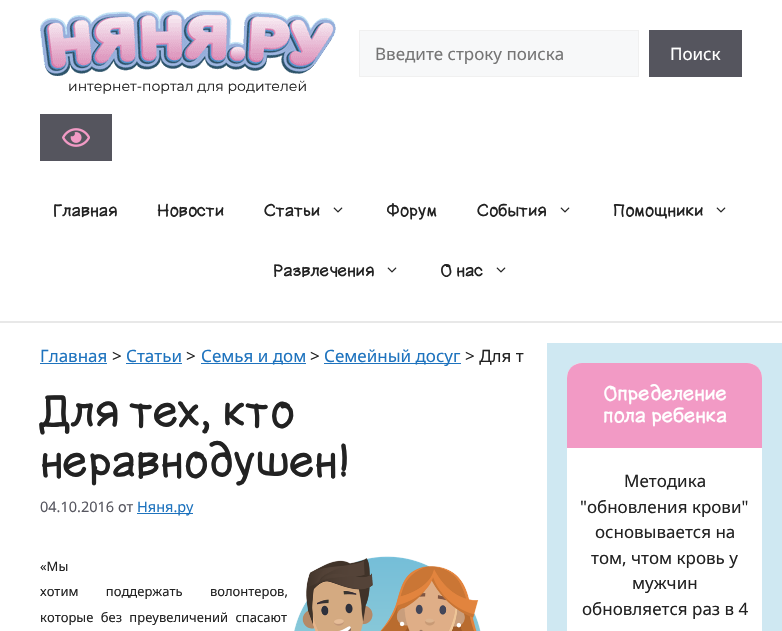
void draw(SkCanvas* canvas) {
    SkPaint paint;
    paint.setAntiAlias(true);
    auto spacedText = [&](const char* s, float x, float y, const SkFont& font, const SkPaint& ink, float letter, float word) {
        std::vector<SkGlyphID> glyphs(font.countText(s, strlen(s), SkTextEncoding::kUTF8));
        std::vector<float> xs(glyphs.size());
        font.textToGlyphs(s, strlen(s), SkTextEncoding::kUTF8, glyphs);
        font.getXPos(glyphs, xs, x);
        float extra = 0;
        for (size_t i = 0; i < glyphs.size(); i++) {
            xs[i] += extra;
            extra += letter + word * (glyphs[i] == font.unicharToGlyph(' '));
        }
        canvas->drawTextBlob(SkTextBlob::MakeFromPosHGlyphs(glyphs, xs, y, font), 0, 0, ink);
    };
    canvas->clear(0xFFFFFFFF);
    paint.setColor(0xFFF7F8F9);
    canvas->drawRect(SkRect::MakeXYWH(359.5f, 30.5f, 279, 46), paint);
    paint.setStyle(SkPaint::kStroke_Style);
    paint.setStrokeWidth(1);
    paint.setColor(0xFFF0F0F0);
    canvas->drawRect(SkRect::MakeXYWH(359.5f, 30.5f, 279, 46), paint);
    SkFont font1(fontMgr->matchFamilyStyle("Noto Sans", SkFontStyle::Normal()), 17);
    font1.setSubpixel(true);
    paint.setStyle(SkPaint::kFill_Style);
    paint.setColor(0xFF757575);
    canvas->drawString("Введите строку поиска", 375, 60, font1, paint);
    paint.setColor(0xFF55555E);
    canvas->drawRect(SkRect::MakeXYWH(649, 30, 93, 47), paint);
    paint.setColor(0xFFFFFFFF);
    canvas->drawString("Поиск", 670, 60, font1, paint);
    canvas->drawImageRect(SkImages::DeferredFromEncodedData(SkData::MakeFromFileName("img1.png")), SkRect::MakeXYWH(40, 10, 296, 66), SkSamplingOptions());
    SkFont font2(fontMgr->matchFamilyStyle("Montserrat", SkFontStyle::Normal()), 14);
    font2.setSubpixel(true);
    paint.setColor(0xFF222222);
    canvas->drawString("интернет-портал для родителей", 68, 91, font2, paint);
    paint.setColor(0xFF55555E);
    canvas->drawRect(SkRect::MakeXYWH(40, 114, 72, 47), paint);
    canvas->drawImageRect(SkImages::DeferredFromEncodedData(SkData::MakeFromFileName("img2.png")), SkRect::MakeXYWH(62, 128, 28, 19), SkSamplingOptions());
    SkFont font3(fontMgr->matchFamilyStyle("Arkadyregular", SkFontStyle::Normal()), 16);
    font3.setSubpixel(true);
    paint.setColor(0xFF222222);
    canvas->drawString("Главная", 53, 216, font3, paint);
    canvas->drawString("Новости", 157, 216, font3, paint);
    canvas->drawString("Статьи", 264, 216, font3, paint);
    canvas->drawImageRect(SkImages::DeferredFromEncodedData(SkData::MakeFromFileName("img3.png")), SkRect::MakeXYWH(333, 207, 10, 6), SkSamplingOptions());
    canvas->drawString("Форум", 386, 216, font3, paint);
    canvas->drawString("События", 477, 216, font3, paint);
    canvas->drawImageRect(SkImages::DeferredFromEncodedData(SkData::MakeFromFileName("img3.png")), SkRect::MakeXYWH(560, 207, 10, 6), SkSamplingOptions());
    canvas->drawString("Помощники", 613, 216, font3, paint);
    canvas->drawImageRect(SkImages::DeferredFromEncodedData(SkData::MakeFromFileName("img3.png")), SkRect::MakeXYWH(716, 207, 10, 6), SkSamplingOptions());
    canvas->drawString("Развлечения", 273, 276, font3, paint);
    canvas->drawImageRect(SkImages::DeferredFromEncodedData(SkData::MakeFromFileName("img3.png")), SkRect::MakeXYWH(387, 267, 10, 6), SkSamplingOptions());
    canvas->drawString("О нас", 440, 276, font3, paint);
    canvas->drawImageRect(SkImages::DeferredFromEncodedData(SkData::MakeFromFileName("img3.png")), SkRect::MakeXYWH(496, 267, 10, 6), SkSamplingOptions());
    paint.setColor(0xFFE8E8E8);
    canvas->drawRect(SkRect::MakeXYWH(0, 321, 782, 2), paint);
    paint.setColor(0xFF1E73BE);
    canvas->drawString("Главная", 40, 362, font1, paint);
    canvas->drawRect(SkRect::MakeXYWH(40, 363, 67, 1), paint);
    paint.setColor(0xFF222222);
    canvas->drawString(">", 112, 362, font1, paint);
    paint.setColor(0xFF1E73BE);
    canvas->drawString("Статьи", 126, 362, font1, paint);
    canvas->drawRect(SkRect::MakeXYWH(126, 363, 56, 1), paint);
    paint.setColor(0xFF222222);
    canvas->drawString(">", 186, 362, font1, paint);
    paint.setColor(0xFF1E73BE);
    canvas->drawRect(SkRect::MakeXYWH(201, 363, 105, 1), paint);
    canvas->drawString("Семья и дом", 201, 362, font1, paint);
    paint.setColor(0xFF222222);
    canvas->drawString(">", 310, 362, font1, paint);
    paint.setColor(0xFF1E73BE);
    canvas->drawRect(SkRect::MakeXYWH(324, 363, 137, 1), paint);
    canvas->drawString("Семейный досуг", 324, 362, font1, paint);
    paint.setColor(0xFF222222);
    canvas->drawString("> Для т", 465, 362, font1, paint);
    SkFont font4(fontMgr->matchFamilyStyle("Arkadyregular", SkFontStyle::Normal()), 42);
    font4.setSubpixel(true);
    canvas->drawString("Для тех, кто", 40, 426, font4, paint);
    canvas->drawString("неравнодушен!", 40, 476, font4, paint);
    SkFont font5(fontMgr->matchFamilyStyle("Noto Sans", SkFontStyle::Normal()), 14.5f);
    font5.setSubpixel(true);
    paint.setColor(0xFF575760);
    canvas->drawString("04.10.2016 от", 40, 512, font5, paint);
    paint.setColor(0xFF1E73BE);
    canvas->drawRect(SkRect::MakeXYWH(137, 513, 56, 1), paint);
    canvas->drawString("Няня.ру", 137, 512, font5, paint);
    SkFont font6(fontMgr->matchFamilyStyle("Noto Sans", SkFontStyle::Normal()), 13);
    font6.setSubpixel(true);
    paint.setColor(0xFF222222);
    canvas->drawString("«Мы", 40, 571, font6, paint);
    canvas->drawImageRect(SkImages::DeferredFromEncodedData(SkData::MakeFromFileName("img4.png")), SkRect::MakeXYWH(294, 556, 187, 75), SkSamplingOptions());
    spacedText("хотим поддержать волонтеров,", 40, 596, font6, paint, 0, 24);
    spacedText("которые без преувеличений спасают", 40, 622, font6, paint, 0, 4);
    paint.setColor(0xFFCFE8F2);
    canvas->drawRect(SkRect::MakeXYWH(547, 343, 235, 288), paint);
    paint.setColor(0xFFFFFFFF);
    canvas->drawRoundRect(SkRect::MakeXYWH(567, 363, 195, 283), 15, 15, paint);
    paint.setColor(0xFFF29AC5);
    canvas->drawPath(SkPathBuilder().moveTo(582, 363).lineTo(747, 363).cubicTo(755.5f, 363, 762, 369.5f, 762, 378).lineTo(762, 448).lineTo(567, 448).lineTo(567, 378).cubicTo(567, 369.5f, 573.5f, 363, 582, 363).close().detach(), paint);
    SkFont font7(fontMgr->matchFamilyStyle("Arkadyregular", SkFontStyle::Normal()), 19);
    font7.setSubpixel(true);
    paint.setColor(0xFFFFFFFF);
    canvas->drawString("Определение", 603, 400, font7, paint);
    canvas->drawString("пола ребенка", 603, 422, font7, paint);
    paint.setColor(0xFF222222);
    canvas->drawString("Методика", 624, 487, font1, paint);
    canvas->drawString("\"обновления крови\"", 580, 513, font1, paint);
    canvas->drawString("основывается на", 595, 538, font1, paint);
    canvas->drawString("том, чтом кровь у", 591, 564, font1, paint);
    canvas->drawString("мужчин", 632, 589, font1, paint);
    canvas->drawString("обновляется раз в 4", 582, 615, font1, paint);
}
